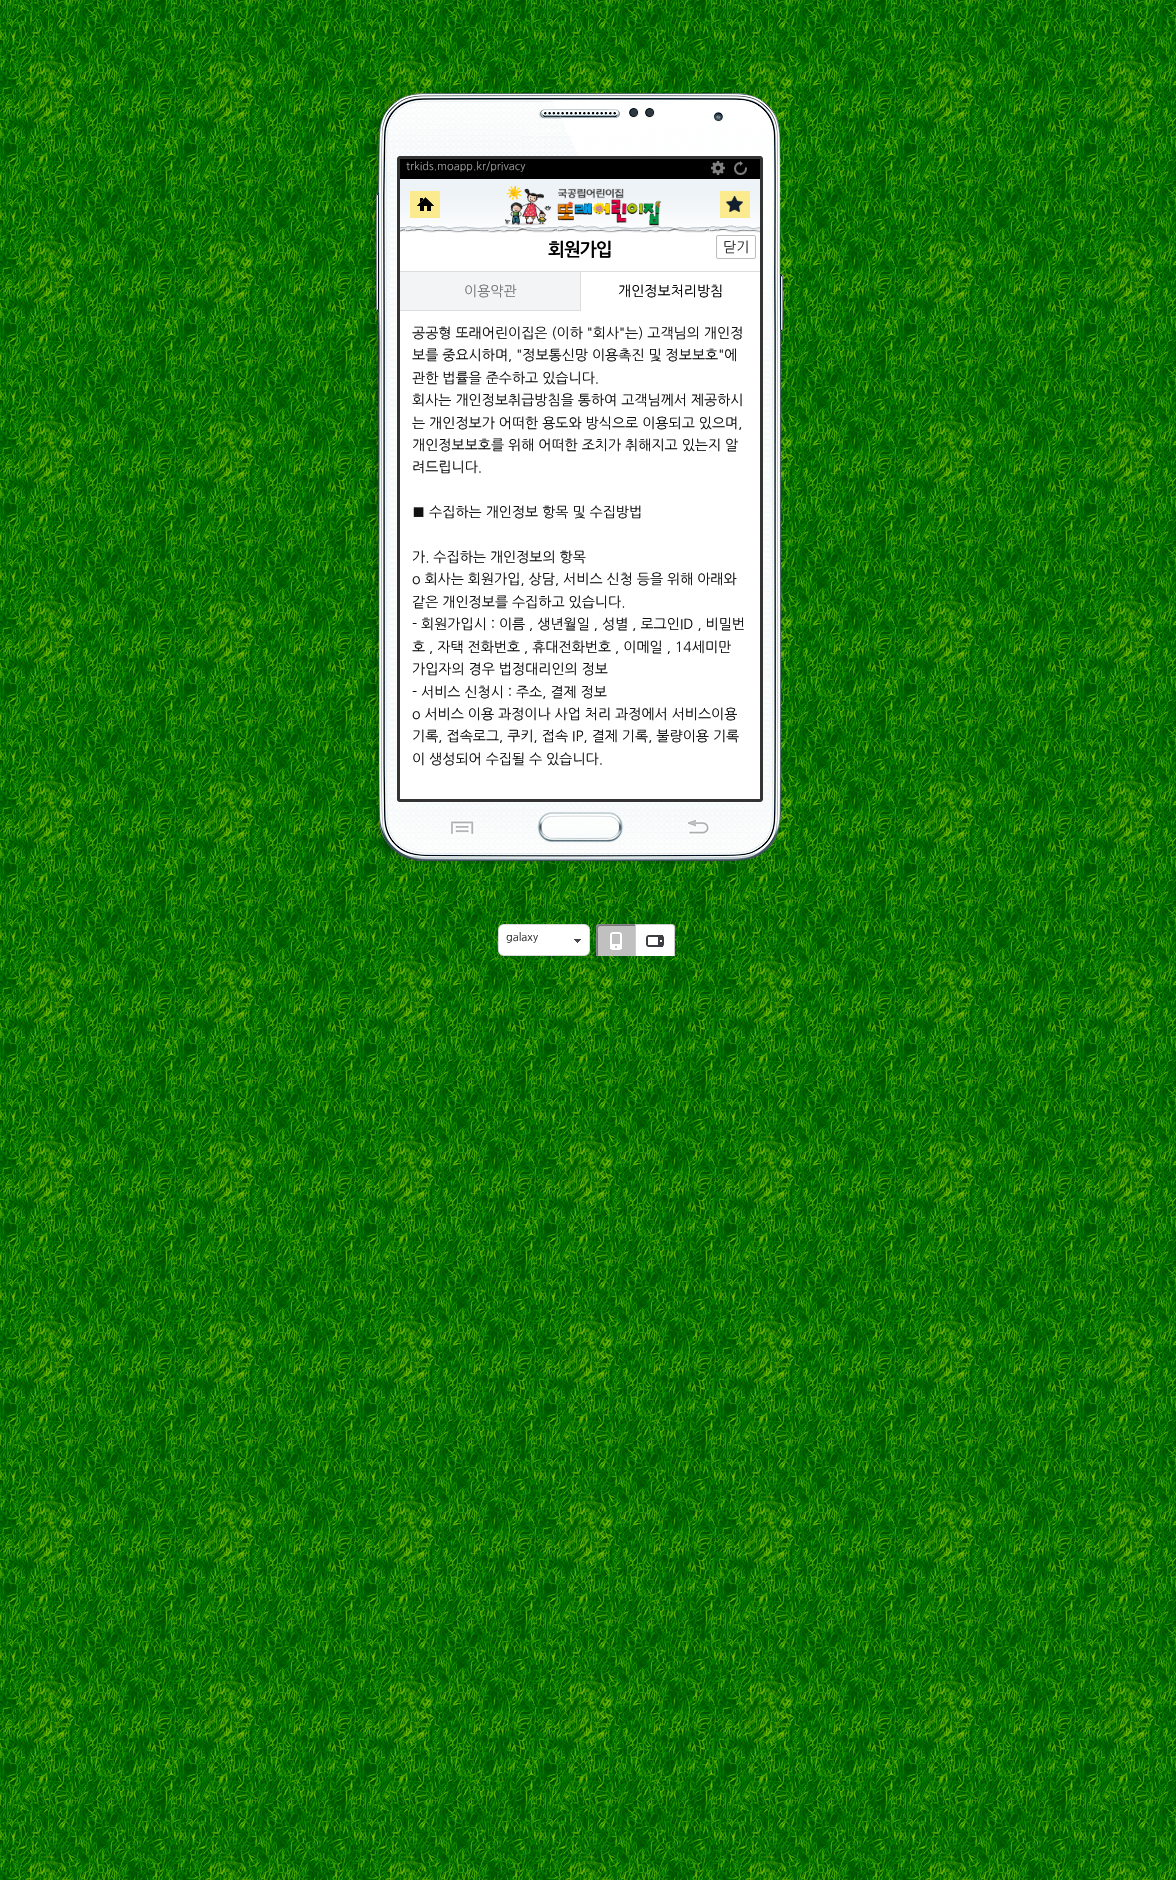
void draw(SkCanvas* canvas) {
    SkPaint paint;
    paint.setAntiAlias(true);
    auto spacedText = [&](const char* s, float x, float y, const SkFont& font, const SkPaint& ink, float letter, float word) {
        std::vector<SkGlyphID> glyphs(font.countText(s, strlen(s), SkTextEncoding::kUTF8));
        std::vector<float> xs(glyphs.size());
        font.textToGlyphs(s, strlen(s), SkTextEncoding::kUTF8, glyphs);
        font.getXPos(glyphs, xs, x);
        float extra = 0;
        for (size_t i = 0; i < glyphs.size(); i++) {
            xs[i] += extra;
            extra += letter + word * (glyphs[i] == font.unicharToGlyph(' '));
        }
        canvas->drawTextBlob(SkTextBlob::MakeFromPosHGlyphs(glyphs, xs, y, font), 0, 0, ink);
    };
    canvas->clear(0xFFFFFFFF);
    canvas->drawImageRect(SkImages::DeferredFromEncodedData(SkData::MakeFromFileName("img1.png")), SkRect::MakeXYWH(0, 0, 1176, 1880), SkSamplingOptions());
    canvas->drawImageRect(SkImages::DeferredFromEncodedData(SkData::MakeFromFileName("img2.png")), SkRect::MakeXYWH(371, 91, 410, 68), SkSamplingOptions());
    canvas->drawImageRect(SkImages::DeferredFromEncodedData(SkData::MakeFromFileName("img3.png")), SkRect::MakeXYWH(368, 159, 32, 640), SkSamplingOptions());
    paint.setColor(0xFF000000);
    canvas->drawRect(SkRect::MakeXYWH(400, 159, 360, 20), paint);
    canvas->drawImageRect(SkImages::DeferredFromEncodedData(SkData::MakeFromFileName("img4.png")), SkRect::MakeXYWH(760, 159, 23, 640), SkSamplingOptions());
    SkFont font1(fontMgr->matchFamilyStyle("NanumGothic", SkFontStyle::Normal()), 11);
    font1.setSubpixel(true);
    paint.setColor(0xFF9B9B9B);
    canvas->drawString("trkids.moapp.kr/privacy", 406, 170, font1, paint);
    canvas->drawImageRect(SkImages::DeferredFromEncodedData(SkData::MakeFromFileName("img5.png")), SkRect::MakeXYWH(711, 161, 14, 14), SkSamplingOptions());
    canvas->drawImageRect(SkImages::DeferredFromEncodedData(SkData::MakeFromFileName("img6.png")), SkRect::MakeXYWH(734, 161, 13, 14), SkSamplingOptions());
    paint.setColor(0xFFFFFFFF);
    canvas->drawRect(SkRect::MakeXYWH(400, 228, 360, 571), paint);
    canvas->drawImageRect(SkImages::DeferredFromEncodedData(SkData::MakeFromFileName("img7.png")), SkRect::MakeXYWH(400, 179, 360, 54), SkSamplingOptions());
    canvas->drawImageRect(SkImages::DeferredFromEncodedData(SkData::MakeFromFileName("img8.png")), SkRect::MakeXYWH(410, 191, 30, 27), SkSamplingOptions());
    canvas->drawImageRect(SkImages::DeferredFromEncodedData(SkData::MakeFromFileName("img9.png")), SkRect::MakeXYWH(505, 185, 157, 41), SkSamplingOptions());
    canvas->drawImageRect(SkImages::DeferredFromEncodedData(SkData::MakeFromFileName("img10.png")), SkRect::MakeXYWH(720, 191, 30, 27), SkSamplingOptions());
    SkFont font2(fontMgr->matchFamilyStyle("NanumGothic", SkFontStyle::Bold()), 18);
    font2.setSubpixel(true);
    paint.setColor(0xFF000000);
    spacedText("회원가입", 548, 256, font2, paint, -1, 0);
    paint.setStyle(SkPaint::kStroke_Style);
    paint.setStrokeWidth(1);
    paint.setColor(0xFFBDBCBC);
    canvas->drawRoundRect(SkRect::MakeXYWH(716.5f, 235.5f, 39, 23), 1.5f, 1.5f, paint);
    SkFont font3(fontMgr->matchFamilyStyle("NanumGothic", SkFontStyle::Normal()), 14);
    font3.setSubpixel(true);
    paint.setStyle(SkPaint::kFill_Style);
    paint.setColor(0xFF2C2C2C);
    canvas->drawString("닫기", 723, 252, font3, paint);
    paint.setColor(0xFFDDDDDD);
    canvas->drawRect(SkRect::MakeXYWH(400, 271, 360, 1), paint);
    paint.setColor(0xFFF3F4F5);
    canvas->drawRect(SkRect::MakeXYWH(400, 272, 180, 38), paint);
    paint.setColor(0xFFDDDDDD);
    canvas->drawRect(SkRect::MakeXYWH(400, 310, 180, 1), paint);
    paint.setColor(0xFF777777);
    canvas->drawString("이용약관", 464, 296, font3, paint);
    paint.setColor(0xFFDDDDDD);
    canvas->drawRect(SkRect::MakeXYWH(580, 272, 1, 39), paint);
    paint.setColor(0xFF000000);
    canvas->drawString("개인정보처리방침", 618, 296, font3, paint);
    paint.setColor(0xFF111111);
    canvas->drawString("공공형 또래어린이집은 (이하 \"회사\"는) 고객님의 개인정", 412, 338, font3, paint);
    canvas->drawString("보를 중요시하며, \"정보통신망 이용촉진 및 정보보호\"에", 412, 360, font3, paint);
    canvas->drawString("관한 법률을 준수하고 있습니다.", 412, 383, font3, paint);
    canvas->drawString("회사는 개인정보취급방침을 통하여 고객님께서 제공하시", 412, 405, font3, paint);
    canvas->drawString("는 개인정보가 어떠한 용도와 방식으로 이용되고 있으며,", 412, 428, font3, paint);
    canvas->drawString("개인정보보호를 위해 어떠한 조치가 취해지고 있는지 알", 412, 450, font3, paint);
    canvas->drawString("려드립니다.", 412, 472, font3, paint);
    canvas->drawString("■ 수집하는 개인정보 항목 및 수집방법", 412, 517, font3, paint);
    canvas->drawString("가. 수집하는 개인정보의 항목", 412, 562, font3, paint);
    canvas->drawString("o 회사는 회원가입, 상담, 서비스 신청 등을 위해 아래와", 412, 584, font3, paint);
    canvas->drawString("같은 개인정보를 수집하고 있습니다.", 412, 607, font3, paint);
    canvas->drawString("- 회원가입시 : 이름 , 생년월일 , 성별 , 로그인ID , 비밀번", 412, 629, font3, paint);
    canvas->drawString("호 , 자택 전화번호 , 휴대전화번호 , 이메일 , 14세미만", 412, 652, font3, paint);
    canvas->drawString("가입자의 경우 법정대리인의 정보", 412, 674, font3, paint);
    canvas->drawString("- 서비스 신청시 : 주소, 결제 정보", 412, 697, font3, paint);
    canvas->drawString("o 서비스 이용 과정이나 사업 처리 과정에서 서비스이용", 412, 719, font3, paint);
    canvas->drawString("기록, 접속로그, 쿠키, 접속 IP, 결제 기록, 불량이용 기록", 412, 741, font3, paint);
    canvas->drawString("이 생성되어 수집될 수 있습니다.", 412, 764, font3, paint);
    canvas->drawImageRect(SkImages::DeferredFromEncodedData(SkData::MakeFromFileName("img11.png")), SkRect::MakeXYWH(371, 799, 410, 65), SkSamplingOptions());
    canvas->drawImageRect(SkImages::DeferredFromEncodedData(SkData::MakeFromFileName("img12.png")), SkRect::MakeXYWH(564, 924, 26, 32), SkSamplingOptions());
    canvas->drawImageRect(SkImages::DeferredFromEncodedData(SkData::MakeFromFileName("img13.png")), SkRect::MakeXYWH(498, 924, 66, 32), SkSamplingOptions());
    paint.setColor(0xFF2C2C2C);
    canvas->drawString("galaxy", 506, 941, font1, paint);
    canvas->save();
    canvas->clipRect(SkRect::MakeXYWH(498, 924, 180, 32));
    paint.setColor(0xFFBFC0BF);
    canvas->drawPath(SkPathBuilder().moveTo(599, 924).lineTo(636, 924).lineTo(636, 958).lineTo(599, 958).cubicTo(597.5f, 958, 596, 956.5f, 596, 955).lineTo(596, 927).cubicTo(596, 925.5f, 597.5f, 924, 599, 924).close().detach(), paint);
    canvas->restore();
    paint.setColor(0xFF777777);
    canvas->drawPath(SkPathBuilder().moveTo(600, 926).lineTo(635, 926).lineTo(635, 925).lineTo(599, 925).cubicTo(598, 925, 597, 926, 597, 927).lineTo(597, 955).cubicTo(597, 956, 597.5f, 956.5f, 598, 957).lineTo(598, 932.5f).cubicTo(598, 931.5f, 597, 926, 600, 926).close().detach(), paint);
    canvas->save();
    canvas->clipRect(SkRect::MakeXYWH(498, 924, 180, 32));
    paint.setStyle(SkPaint::kStroke_Style);
    paint.setColor(0xFF828382);
    canvas->drawPath(SkPathBuilder().moveTo(599, 924.5f).lineTo(635.5f, 924.5f).lineTo(635.5f, 957.5f).lineTo(599, 957.5f).cubicTo(597.5f, 957.5f, 596.5f, 956.5f, 596.5f, 955).lineTo(596.5f, 927).cubicTo(596.5f, 925.5f, 597.5f, 924.5f, 599, 924.5f).close().detach(), paint);
    canvas->restore();
    canvas->drawImageRect(SkImages::DeferredFromEncodedData(SkData::MakeFromFileName("img14.png")), SkRect::MakeXYWH(610, 932, 12, 18), SkSamplingOptions());
    canvas->save();
    canvas->clipRect(SkRect::MakeXYWH(498, 924, 180, 32));
    paint.setStyle(SkPaint::kFill_Style);
    paint.setColor(0xFFFFFFFF);
    canvas->drawPath(SkPathBuilder().moveTo(635.5f, 924.5f).lineTo(672, 924.5f).cubicTo(673.5f, 924.5f, 674.5f, 925.5f, 674.5f, 927).lineTo(674.5f, 955).cubicTo(674.5f, 956.5f, 673.5f, 957.5f, 672, 957.5f).lineTo(635.5f, 957.5f).close().detach(), paint);
    paint.setStyle(SkPaint::kStroke_Style);
    paint.setColor(0xFFCCCCCC);
    canvas->drawPath(SkPathBuilder().moveTo(635.5f, 924.5f).lineTo(672, 924.5f).cubicTo(673.5f, 924.5f, 674.5f, 925.5f, 674.5f, 927).lineTo(674.5f, 955).cubicTo(674.5f, 956.5f, 673.5f, 957.5f, 672, 957.5f).lineTo(635.5f, 957.5f).close().detach(), paint);
    canvas->restore();
    canvas->drawImageRect(SkImages::DeferredFromEncodedData(SkData::MakeFromFileName("img15.png")), SkRect::MakeXYWH(646, 935, 18, 12), SkSamplingOptions());
}
